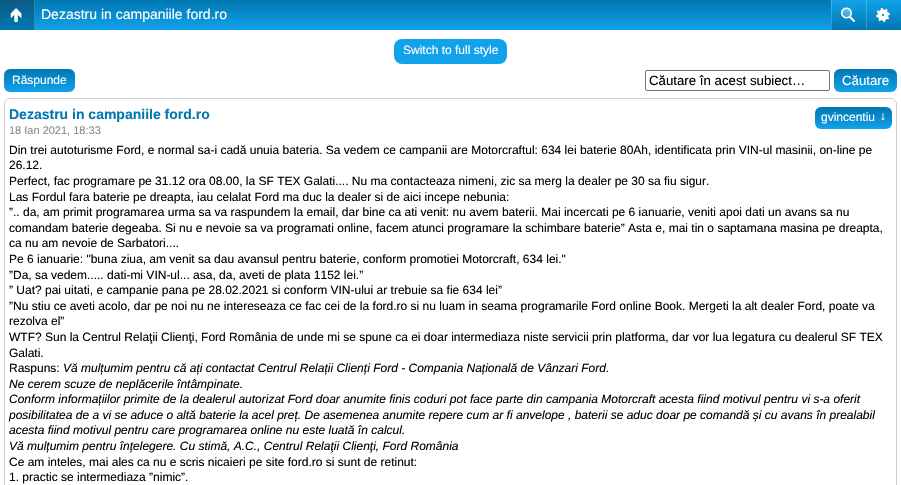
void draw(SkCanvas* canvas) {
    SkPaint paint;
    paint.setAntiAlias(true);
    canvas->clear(0xFFFFFFFF);
    {
        const SkColor colors[] = {0xFF0077B2, 0xFF12A2EA};
        const float stops[] = {0, 1};
        const SkPoint ends[] = {{451, 0}, {451, 30}};
        paint.setShader(SkGradientShader::MakeLinear(ends, colors, stops, 2, SkTileMode::kClamp));
        paint.setAlpha(255);
    }
    canvas->drawRect(SkRect::MakeXYWH(35, 0, 796, 30), paint);
    {
        const SkColor colors[] = {0xFF0B5C84, 0xFF0077B2};
        const float stops[] = {0, 1};
        const SkPoint ends[] = {{17, 0}, {18, 30}};
        paint.setShader(SkGradientShader::MakeLinear(ends, colors, stops, 2, SkTileMode::kClamp));
        paint.setAlpha(255);
    }
    canvas->drawRect(SkRect::MakeXYWH(0, 0, 34, 30), paint);
    {
        const SkColor colors[] = {0xFF3C7D9D, 0xFF3392C1};
        const float stops[] = {0, 1};
        const SkPoint ends[] = {{17, 0}, {18, 30}};
        paint.setShader(SkGradientShader::MakeLinear(ends, colors, stops, 2, SkTileMode::kClamp));
        paint.setAlpha(255);
    }
    canvas->drawRect(SkRect::MakeXYWH(34, 0, 1, 30), paint);
    canvas->drawImageRect(SkImages::DeferredFromEncodedData(SkData::MakeFromFileName("img1.png")), SkRect::MakeXYWH(10, 8, 12, 14), SkSamplingOptions());
    SkFont font1(fontMgr->matchFamilyStyle("Liberation Sans", SkFontStyle::Normal()), 14);
    font1.setSubpixel(true);
    paint.setShader(nullptr);
    paint.setColor(0xFFFFFFFF);
    canvas->drawString("Dezastru in campaniile ford.ro", 41, 19, font1, paint);
    {
        const SkColor colors[] = {0xFF12A2EA, 0xFF0076B1};
        const float stops[] = {0, 1};
        const SkPoint ends[] = {{849, 0}, {849, 30}};
        paint.setShader(SkGradientShader::MakeLinear(ends, colors, stops, 2, SkTileMode::kClamp));
        paint.setAlpha(255);
    }
    canvas->drawRect(SkRect::MakeXYWH(832, 0, 34, 30), paint);
    {
        const SkColor colors[] = {0xFF41B5EE, 0xFF3391C1};
        const float stops[] = {0, 1};
        const SkPoint ends[] = {{849, 0}, {849, 30}};
        paint.setShader(SkGradientShader::MakeLinear(ends, colors, stops, 2, SkTileMode::kClamp));
        paint.setAlpha(255);
    }
    canvas->drawRect(SkRect::MakeXYWH(831, 0, 1, 30), paint);
    canvas->drawImageRect(SkImages::DeferredFromEncodedData(SkData::MakeFromFileName("img2.png")), SkRect::MakeXYWH(841, 7, 14, 15), SkSamplingOptions());
    {
        const SkColor colors[] = {0xFF12A2EA, 0xFF0076B1};
        const float stops[] = {0, 1};
        const SkPoint ends[] = {{884, 0}, {884, 30}};
        paint.setShader(SkGradientShader::MakeLinear(ends, colors, stops, 2, SkTileMode::kClamp));
        paint.setAlpha(255);
    }
    canvas->drawRect(SkRect::MakeXYWH(867, 0, 34, 30), paint);
    {
        const SkColor colors[] = {0xFF41B5EE, 0xFF3391C1};
        const float stops[] = {0, 1};
        const SkPoint ends[] = {{884, 0}, {884, 30}};
        paint.setShader(SkGradientShader::MakeLinear(ends, colors, stops, 2, SkTileMode::kClamp));
        paint.setAlpha(255);
    }
    canvas->drawRect(SkRect::MakeXYWH(866, 0, 1, 30), paint);
    canvas->drawImageRect(SkImages::DeferredFromEncodedData(SkData::MakeFromFileName("img3.png")), SkRect::MakeXYWH(876, 8, 14, 14), SkSamplingOptions());
    paint.setShader(nullptr);
    paint.setColor(0xFF12A2EA);
    canvas->drawRoundRect(SkRect::MakeXYWH(394, 39, 113, 25), 8, 8, paint);
    SkFont font2(fontMgr->matchFamilyStyle("Liberation Sans", SkFontStyle::Normal()), 12);
    font2.setSubpixel(true);
    paint.setColor(0xFFFFFFFF);
    canvas->drawString("Switch to full style", 403, 54, font2, paint);
    {
        const SkColor colors[] = {0xFF0077B2, 0xFF12A2EA};
        const float stops[] = {0, 1};
        const SkPoint ends[] = {{40, 69}, {40, 92}};
        paint.setShader(SkGradientShader::MakeLinear(ends, colors, stops, 2, SkTileMode::kClamp));
        paint.setAlpha(255);
    }
    canvas->drawRoundRect(SkRect::MakeXYWH(4, 69, 71, 23), 6, 6, paint);
    paint.setShader(nullptr);
    paint.setColor(0xFFFFFFFF);
    canvas->drawString("Răspunde", 12, 84, font2, paint);
    paint.setStyle(SkPaint::kStroke_Style);
    paint.setStrokeWidth(1);
    paint.setColor(0xFF767676);
    canvas->drawRoundRect(SkRect::MakeXYWH(645.5f, 70.5f, 184, 20), 1.5f, 1.5f, paint);
    SkFont font3(fontMgr->matchFamilyStyle("Liberation Sans", SkFontStyle::Normal()), 13.25f);
    font3.setSubpixel(true);
    paint.setStyle(SkPaint::kFill_Style);
    paint.setColor(0xFF000000);
    canvas->drawString("Căutare în acest subiect…", 649, 85, font3, paint);
    {
        const SkColor colors[] = {0xFF0077B2, 0xFF12A2EA};
        const float stops[] = {0, 1};
        const SkPoint ends[] = {{866, 69}, {866, 92}};
        paint.setShader(SkGradientShader::MakeLinear(ends, colors, stops, 2, SkTileMode::kClamp));
        paint.setAlpha(255);
    }
    canvas->drawRoundRect(SkRect::MakeXYWH(834, 69, 63, 23), 6, 6, paint);
    paint.setShader(nullptr);
    paint.setColor(0xFFFFFFFF);
    canvas->drawString("Căutare", 842, 85, font3, paint);
    paint.setStyle(SkPaint::kStroke_Style);
    paint.setColor(0xFFCCCCCC);
    canvas->drawRoundRect(SkRect::MakeXYWH(4.5f, 98.5f, 892, 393), 5.5f, 5.5f, paint);
    SkFont font4(fontMgr->matchFamilyStyle("Liberation Sans", SkFontStyle::Bold()), 14);
    font4.setSubpixel(true);
    paint.setStyle(SkPaint::kFill_Style);
    paint.setColor(0xFF0077B2);
    canvas->drawString("Dezastru in campaniile ford.ro", 9, 119, font4, paint);
    {
        const SkColor colors[] = {0xFF0077B2, 0xFF12A2EA};
        const float stops[] = {0, 1};
        const SkPoint ends[] = {{854, 107}, {854, 129}};
        paint.setShader(SkGradientShader::MakeLinear(ends, colors, stops, 2, SkTileMode::kClamp));
        paint.setAlpha(255);
    }
    canvas->drawRoundRect(SkRect::MakeXYWH(815, 107, 77, 22), 6, 6, paint);
    paint.setShader(nullptr);
    paint.setColor(0xFFFFFFFF);
    canvas->drawString("gvincentiu", 821, 121, font2, paint);
    canvas->drawString("↓", 880, 120, font2, paint);
    SkFont font5(fontMgr->matchFamilyStyle("Liberation Sans", SkFontStyle::Normal()), 11);
    font5.setSubpixel(true);
    paint.setColor(0xFF888888);
    canvas->drawString("18 Ian 2021, 18:33", 9, 134, font5, paint);
    paint.setColor(0xFF000000);
    canvas->drawString("Din trei autoturisme Ford, e normal sa-i cadă unuia bateria. Sa vedem ce campanii are Motorcraftul: 634 lei baterie 80Ah, identificata prin VIN-ul masinii, on-line pe", 9, 154, font2, paint);
    canvas->drawString("26.12.", 9, 169, font2, paint);
    canvas->drawString("Perfect, fac programare pe 31.12 ora 08.00, la SF TEX Galati.... Nu ma contacteaza nimeni, zic sa merg la dealer pe 30 sa fiu sigur.", 9, 185, font2, paint);
    canvas->drawString("Las Fordul fara baterie pe dreapta, iau celalat Ford ma duc la dealer si de aici incepe nebunia:", 9, 201, font2, paint);
    canvas->drawString("”.. da, am primit programarea urma sa va raspundem la email, dar bine ca ati venit: nu avem baterii. Mai incercati pe 6 ianuarie, veniti apoi dati un avans sa nu", 9, 216, font2, paint);
    canvas->drawString("comandam baterie degeaba. Si nu e nevoie sa va programati online, facem atunci programare la schimbare baterie” Asta e, mai tin o saptamana masina pe dreapta,", 9, 232, font2, paint);
    canvas->drawString("ca nu am nevoie de Sarbatori....", 9, 247, font2, paint);
    canvas->drawString("Pe 6 ianuarie: \"buna ziua, am venit sa dau avansul pentru baterie, conform promotiei Motorcraft, 634 lei.\"", 9, 263, font2, paint);
    canvas->drawString("”Da, sa vedem..... dati-mi VIN-ul... asa, da, aveti de plata 1152 lei.”", 9, 279, font2, paint);
    canvas->drawString("” Uat? pai uitati, e campanie pana pe 28.02.2021 si conform VIN-ului ar trebuie sa fie 634 lei”", 9, 294, font2, paint);
    canvas->drawString("”Nu stiu ce aveti acolo, dar pe noi nu ne intereseaza ce fac cei de la ford.ro si nu luam in seama programarile Ford online Book. Mergeti la alt dealer Ford, poate va", 9, 310, font2, paint);
    canvas->drawString("rezolva el”", 9, 325, font2, paint);
    canvas->drawString("WTF? Sun la Centrul Relaţii Clienţi, Ford România de unde mi se spune ca ei doar intermediaza niste servicii prin platforma, dar vor lua legatura cu dealerul SF TEX", 9, 341, font2, paint);
    canvas->drawString("Galati.", 9, 357, font2, paint);
    canvas->drawString("Raspuns:", 9, 372, font2, paint);
    SkFont font6(fontMgr->matchFamilyStyle("Liberation Sans", SkFontStyle::Italic()), 12);
    font6.setSubpixel(true);
    canvas->drawString("Vă mulțumim pentru că ați contactat Centrul Relații Clienți Ford - Compania Națională de Vânzari Ford.", 63, 372, font6, paint);
    canvas->drawString("Ne cerem scuze de neplăcerile întâmpinate.", 9, 388, font6, paint);
    canvas->drawString("Conform informațiilor primite de la dealerul autorizat Ford doar anumite finis coduri pot face parte din campania Motorcraft acesta fiind motivul pentru vi s-a oferit", 9, 403, font6, paint);
    canvas->drawString("posibilitatea de a vi se aduce o altă baterie la acel preț. De asemenea anumite repere cum ar fi anvelope , baterii se aduc doar pe comandă și cu avans în prealabil", 9, 419, font6, paint);
    canvas->drawString("acesta fiind motivul pentru care programarea online nu este luată în calcul.", 9, 434, font6, paint);
    canvas->drawString("Vă mulțumim pentru înțelegere. Cu stimă, A.C., Centrul Relaţii Clienţi, Ford România", 9, 450, font6, paint);
    canvas->drawString("Ce am inteles, mai ales ca nu e scris nicaieri pe site ford.ro si sunt de retinut:", 9, 466, font2, paint);
    canvas->drawString("1. practic se intermediaza ”nimic”.", 9, 481, font2, paint);
}
